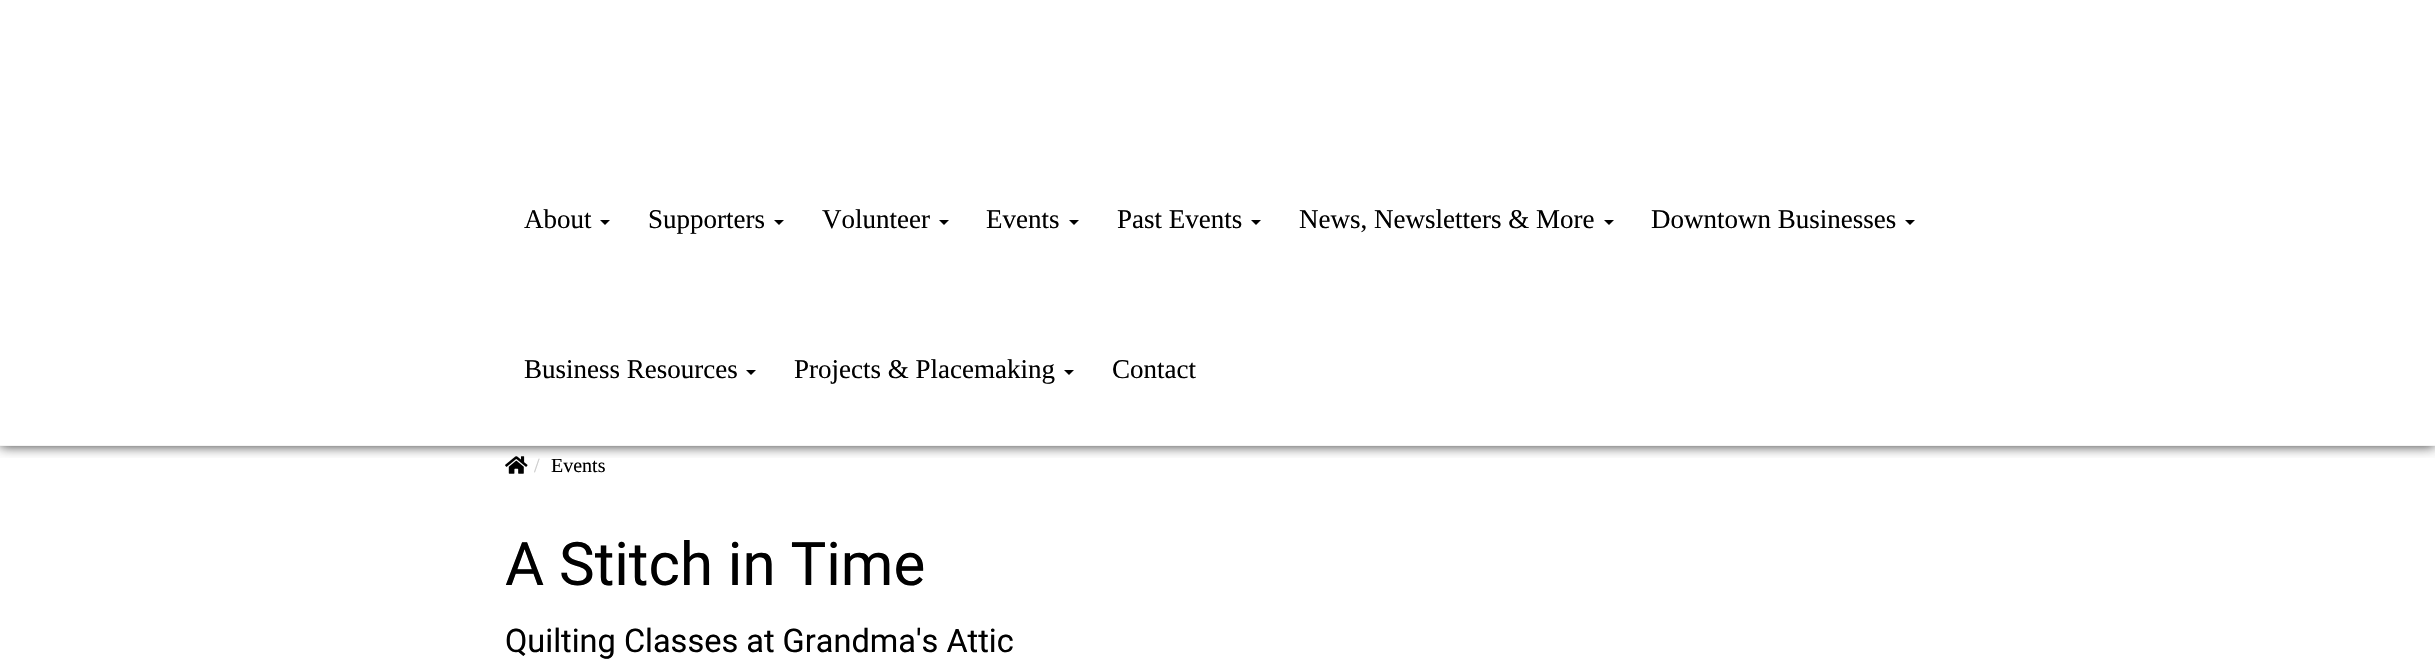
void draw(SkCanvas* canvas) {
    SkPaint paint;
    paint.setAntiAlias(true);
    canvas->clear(0xFFFFFFFF);
    canvas->drawImageRect(SkImages::DeferredFromEncodedData(SkData::MakeFromFileName("img1.png")), SkRect::MakeXYWH(505, 456, 23, 18), SkSamplingOptions());
    canvas->save();
    canvas->clipRect(SkRect::MakeXYWH(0, 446, 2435, 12));
    paint.setColor(0xCC000000);
    paint.setMaskFilter(SkMaskFilter::MakeBlur(kNormal_SkBlurStyle, 6));
    canvas->drawRect(SkRect::MakeXYWH(0, 0, 2435, 446), paint);
    paint.setMaskFilter(nullptr);
    canvas->restore();
    paint.setColor(0xFFF5F5F5);
    canvas->drawRect(SkRect::MakeXYWH(0, 445, 2435, 1), paint);
    SkFont font1(fontMgr->matchFamilyStyle("Liberation Serif", SkFontStyle::Normal()), 27);
    font1.setSubpixel(true);
    paint.setColor(0xFF000000);
    canvas->drawString("About", 524, 228, font1, paint);
    canvas->drawPath(SkPathBuilder().moveTo(600, 220).lineTo(610, 220).lineTo(605, 225).close().detach(), paint);
    canvas->drawString("Supporters", 648, 228, font1, paint);
    canvas->drawPath(SkPathBuilder().moveTo(774, 220).lineTo(784, 220).lineTo(779, 225).close().detach(), paint);
    canvas->drawString("Volunteer", 822, 228, font1, paint);
    canvas->drawPath(SkPathBuilder().moveTo(939, 220).lineTo(949, 220).lineTo(944, 225).close().detach(), paint);
    canvas->drawString("Events", 986, 228, font1, paint);
    canvas->drawPath(SkPathBuilder().moveTo(1069, 220).lineTo(1079, 220).lineTo(1074, 225).close().detach(), paint);
    canvas->drawString("Past Events", 1117, 228, font1, paint);
    canvas->drawPath(SkPathBuilder().moveTo(1251, 220).lineTo(1261, 220).lineTo(1256, 225).close().detach(), paint);
    canvas->drawString("News, Newsletters & More", 1299, 228, font1, paint);
    canvas->drawPath(SkPathBuilder().moveTo(1604, 220).lineTo(1614, 220).lineTo(1609, 225).close().detach(), paint);
    canvas->drawString("Downtown Businesses", 1651, 228, font1, paint);
    canvas->drawPath(SkPathBuilder().moveTo(1905, 220).lineTo(1915, 220).lineTo(1910, 225).close().detach(), paint);
    canvas->drawString("Business Resources", 524, 378, font1, paint);
    canvas->drawPath(SkPathBuilder().moveTo(746, 370).lineTo(756, 370).lineTo(751, 375).close().detach(), paint);
    canvas->drawString("Projects & Placemaking", 794, 378, font1, paint);
    canvas->drawPath(SkPathBuilder().moveTo(1064, 370).lineTo(1074, 370).lineTo(1069, 375).close().detach(), paint);
    canvas->drawString("Contact", 1112, 378, font1, paint);
    SkFont font2(fontMgr->matchFamilyStyle("Liberation Serif", SkFontStyle::Normal()), 20);
    font2.setSubpixel(true);
    paint.setColor(0xFFCCCCCC);
    canvas->drawString("/", 534, 472, font2, paint);
    paint.setColor(0xFF000000);
    canvas->drawString("Events", 551, 472, font2, paint);
    SkFont font3(fontMgr->matchFamilyStyle("Roboto", SkFontStyle::Normal()), 60);
    font3.setSubpixel(true);
    canvas->drawString("A Stitch in Time", 505, 585, font3, paint);
    SkFont font4(fontMgr->matchFamilyStyle("Roboto", SkFontStyle::Normal()), 32.5f);
    font4.setSubpixel(true);
    canvas->drawString("Quilting Classes at Grandma's Attic", 505, 652, font4, paint);
}
